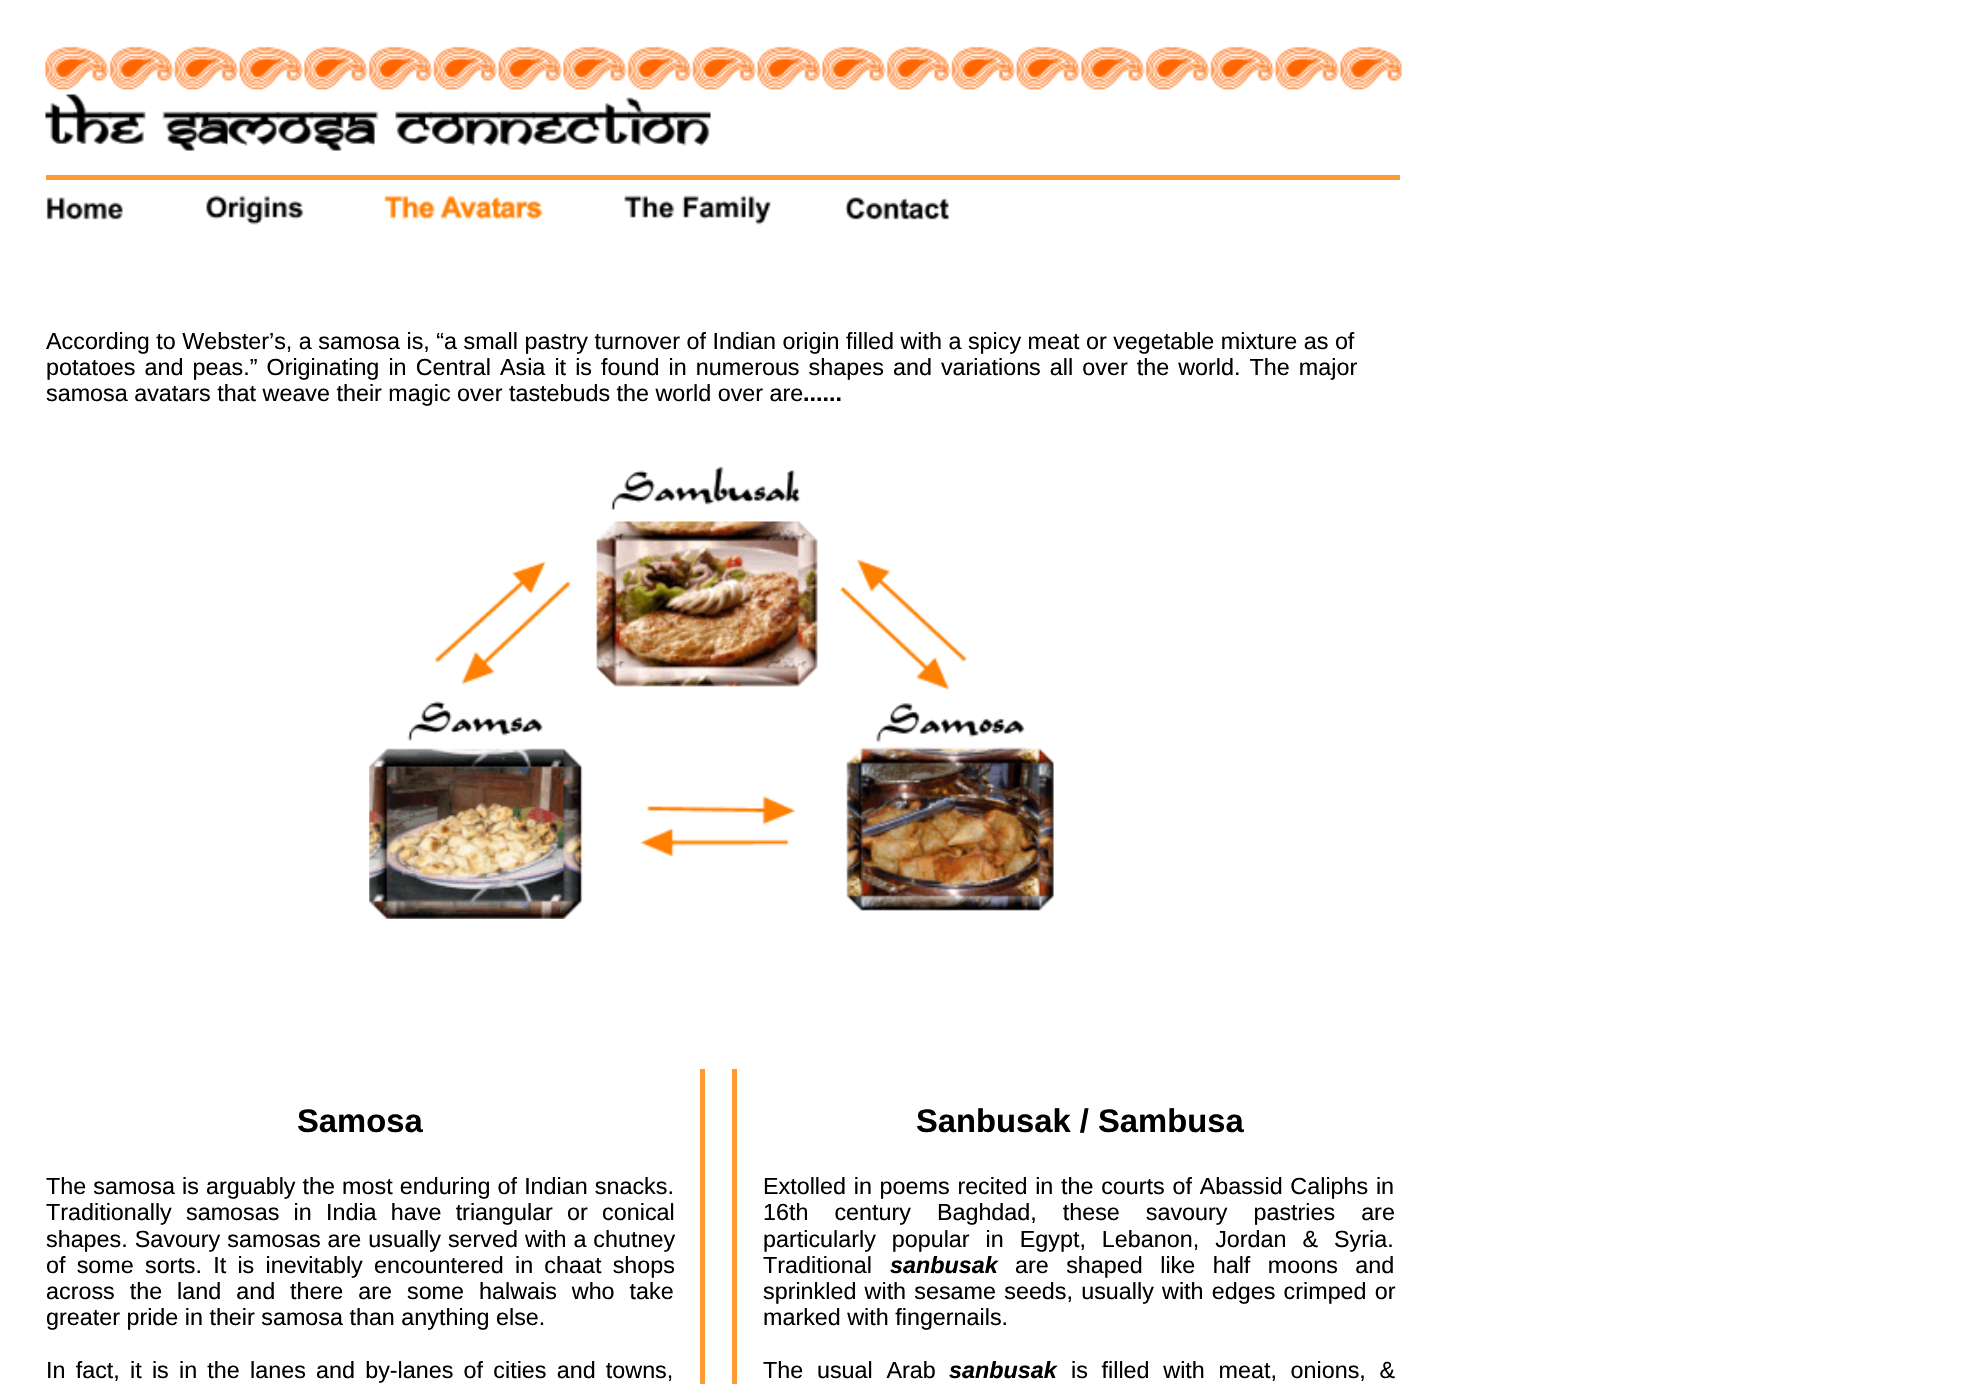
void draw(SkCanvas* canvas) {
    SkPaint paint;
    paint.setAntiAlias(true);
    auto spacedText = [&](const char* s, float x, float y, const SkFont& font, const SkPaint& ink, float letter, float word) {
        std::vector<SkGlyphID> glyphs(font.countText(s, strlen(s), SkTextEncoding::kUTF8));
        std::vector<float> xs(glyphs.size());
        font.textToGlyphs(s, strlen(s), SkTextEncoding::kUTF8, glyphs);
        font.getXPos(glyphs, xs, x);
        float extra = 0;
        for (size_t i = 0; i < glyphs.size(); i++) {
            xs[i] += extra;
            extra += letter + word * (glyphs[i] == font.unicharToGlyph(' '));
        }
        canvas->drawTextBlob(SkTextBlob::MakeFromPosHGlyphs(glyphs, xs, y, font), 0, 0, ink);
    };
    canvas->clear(0xFFFFFFFF);
    canvas->drawImageRect(SkImages::DeferredFromEncodedData(SkData::MakeFromFileName("img1.png")), SkRect::MakeXYWH(43, 46, 1359, 44), SkSamplingOptions());
    paint.setColor(0xFFFF9933);
    canvas->drawRect(SkRect::MakeXYWH(46, 175, 1354, 5), paint);
    canvas->drawImageRect(SkImages::DeferredFromEncodedData(SkData::MakeFromFileName("img2.png")), SkRect::MakeXYWH(45, 94, 666, 57), SkSamplingOptions());
    canvas->drawImageRect(SkImages::DeferredFromEncodedData(SkData::MakeFromFileName("img3.png")), SkRect::MakeXYWH(46, 197, 77, 23), SkSamplingOptions());
    canvas->drawImageRect(SkImages::DeferredFromEncodedData(SkData::MakeFromFileName("img4.png")), SkRect::MakeXYWH(206, 195, 98, 30), SkSamplingOptions());
    canvas->drawImageRect(SkImages::DeferredFromEncodedData(SkData::MakeFromFileName("img5.png")), SkRect::MakeXYWH(384, 195, 159, 25), SkSamplingOptions());
    canvas->drawImageRect(SkImages::DeferredFromEncodedData(SkData::MakeFromFileName("img6.png")), SkRect::MakeXYWH(624, 195, 148, 30), SkSamplingOptions());
    canvas->drawImageRect(SkImages::DeferredFromEncodedData(SkData::MakeFromFileName("img7.png")), SkRect::MakeXYWH(845, 197, 104, 23), SkSamplingOptions());
    SkFont font1(fontMgr->matchFamilyStyle("Liberation Sans", SkFontStyle::Normal()), 23.33f);
    font1.setSubpixel(true);
    paint.setColor(0xFF000000);
    canvas->drawString("According to Webster’s, a samosa is, “a small pastry turnover of Indian origin filled with a spicy meat or vegetable mixture as of", 46, 349, font1, paint);
    spacedText("potatoes and peas.” Originating in Central Asia it is found in numerous shapes and variations all over the world. The major", 46, 375, font1, paint, 0, 2.6f);
    canvas->drawString("samosa avatars that weave their magic over tastebuds the world over are", 46, 401, font1, paint);
    SkFont font2(fontMgr->matchFamilyStyle("Liberation Sans", SkFontStyle::Bold()), 23.33f);
    font2.setSubpixel(true);
    canvas->drawString("......", 803, 401, font2, paint);
    canvas->drawImageRect(SkImages::DeferredFromEncodedData(SkData::MakeFromFileName("img8.png")), SkRect::MakeXYWH(369, 467, 685, 452), SkSamplingOptions());
    paint.setColor(0xFFFF9933);
    canvas->drawRect(SkRect::MakeXYWH(700, 1069, 5, 315), paint);
    SkFont font3(fontMgr->matchFamilyStyle("Liberation Sans", SkFontStyle::Bold()), 32.75f);
    font3.setSubpixel(true);
    paint.setColor(0xFF000000);
    canvas->drawString("Samosa", 297, 1132, font3, paint);
    spacedText("The samosa is arguably the most enduring of Indian snacks.", 46, 1194, font1, paint, 0, 0.6f);
    spacedText("Traditionally samosas in India have triangular or conical", 46, 1220, font1, paint, 0, 7.75f);
    spacedText("shapes. Savoury samosas are usually served with a chutney", 46, 1247, font1, paint, 0, 0.5f);
    spacedText("of some sorts. It is inevitably encountered in chaat shops", 46, 1273, font1, paint, 0, 4.75f);
    spacedText("across the land and there are some halwais who take", 46, 1299, font1, paint, 0, 8.5f);
    canvas->drawString("greater pride in their samosa than anything else.", 46, 1325, font1, paint);
    spacedText("In fact, it is in the lanes and by-lanes of cities and towns,", 46, 1378, font1, paint, 0, 3.75f);
    paint.setColor(0xFFFF9933);
    canvas->drawRect(SkRect::MakeXYWH(732, 1069, 5, 315), paint);
    paint.setColor(0xFF000000);
    canvas->drawString("Sanbusak / Sambusa", 916, 1132, font3, paint);
    spacedText("Extolled in poems recited in the courts of Abassid Caliphs in", 763, 1194, font1, paint, 0, 1.25f);
    spacedText("16th century Baghdad, these savoury pastries are", 763, 1220, font1, paint, 0, 19.5f);
    spacedText("particularly popular in Egypt, Lebanon, Jordan & Syria.", 763, 1247, font1, paint, 0, 9.5f);
    canvas->drawString("Traditional", 763, 1273, font1, paint);
    SkFont font4(fontMgr->matchFamilyStyle("Liberation Sans", SkFontStyle::BoldItalic()), 23.33f);
    font4.setSubpixel(true);
    canvas->drawString("sanbusak", 890, 1273, font4, paint);
    spacedText("are shaped like half moons and", 1015, 1273, font1, paint, 0, 11);
    spacedText("sprinkled with sesame seeds, usually with edges crimped or", 763, 1299, font1, paint, 0, 1.75f);
    canvas->drawString("marked with fingernails.", 763, 1325, font1, paint);
    spacedText("The usual Arab", 763, 1378, font1, paint, 0, 7.25f);
    canvas->drawString("sanbusak", 949, 1378, font4, paint);
    spacedText("is filled with meat, onions, &", 1071, 1378, font1, paint, 0, 7.25f);
}
